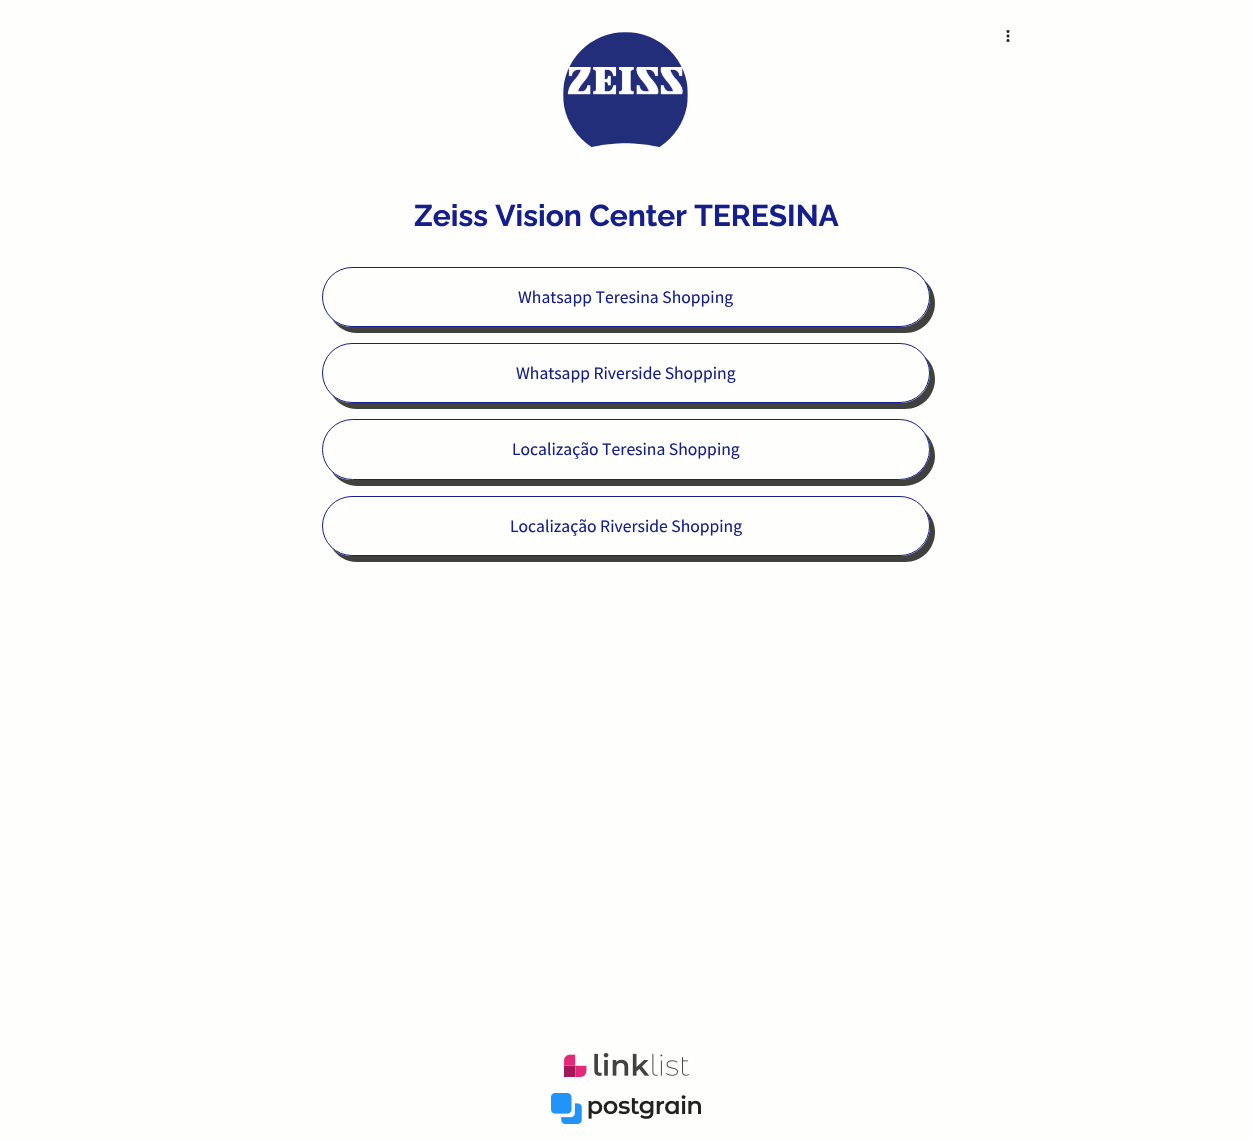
void draw(SkCanvas* canvas) {
    SkPaint paint;
    paint.setAntiAlias(true);
    canvas->clear(0xFFFEFEFD);
    canvas->drawImageRect(SkImages::DeferredFromEncodedData(SkData::MakeFromFileName("img1.png")), SkRect::MakeXYWH(1006, 30, 4, 12), SkSamplingOptions());
    canvas->drawImageRect(SkImages::DeferredFromEncodedData(SkData::MakeFromFileName("img2.png")), SkRect::MakeXYWH(563, 32, 125, 116), SkSamplingOptions());
    SkFont font1(fontMgr->matchFamilyStyle("Raleway", SkFontStyle::Bold()), 30);
    font1.setSubpixel(true);
    paint.setColor(0xFF141E8C);
    canvas->drawString("Zeiss Vision Center TERESINA", 414, 226, font1, paint);
    paint.setColor(0xFF40403F);
    canvas->drawPath(SkPathBuilder().moveTo(332, 319).cubicTo(337, 327, 346, 333, 357, 333).lineTo(905, 333).cubicTo(922, 333, 935, 320, 935, 303).cubicTo(935, 294, 931, 286, 925, 281).cubicTo(928, 286, 930, 291, 930, 297).cubicTo(930, 314, 917, 327, 900, 327).lineTo(352, 327).cubicTo(344, 327, 337, 324, 332, 319).close().detach(), paint);
    paint.setStyle(SkPaint::kStroke_Style);
    paint.setStrokeWidth(1);
    paint.setColor(0xFF141E8C);
    canvas->drawRoundRect(SkRect::MakeXYWH(322.5f, 267.5f, 607, 59), 29.5f, 29.5f, paint);
    SkFont font2(fontMgr->matchFamilyStyle("Source Sans Pro", SkFontStyle::Normal()), 17.6f);
    font2.setSubpixel(true);
    paint.setStyle(SkPaint::kFill_Style);
    canvas->drawString("Whatsapp Teresina Shopping", 518, 303, font2, paint);
    paint.setColor(0xFF40403F);
    canvas->drawPath(SkPathBuilder().moveTo(332, 395).cubicTo(337, 403, 346, 409, 357, 409).lineTo(905, 409).cubicTo(922, 409, 935, 396, 935, 379).cubicTo(935, 370, 931, 362, 925, 357).cubicTo(928, 362, 930, 367, 930, 373).cubicTo(930, 390, 917, 403, 900, 403).lineTo(352, 403).cubicTo(344, 403, 337, 400, 332, 395).close().detach(), paint);
    paint.setStyle(SkPaint::kStroke_Style);
    paint.setColor(0xFF141E8C);
    canvas->drawRoundRect(SkRect::MakeXYWH(322.5f, 343.5f, 607, 59), 29.5f, 29.5f, paint);
    paint.setStyle(SkPaint::kFill_Style);
    canvas->drawString("Whatsapp Riverside Shopping", 516, 379, font2, paint);
    paint.setColor(0xFF40403F);
    canvas->drawPath(SkPathBuilder().moveTo(332, 472).cubicTo(337, 480, 347, 486, 358, 486).lineTo(904, 486).cubicTo(921, 486, 935, 472, 935, 456).cubicTo(935, 447, 931, 439, 925, 433).cubicTo(928, 438, 930, 443, 930, 450).cubicTo(930, 466, 916, 480, 900, 480).lineTo(352, 480).cubicTo(344, 480, 337, 477, 332, 472).close().detach(), paint);
    paint.setStyle(SkPaint::kStroke_Style);
    paint.setColor(0xFF141E8C);
    canvas->drawRoundRect(SkRect::MakeXYWH(322.5f, 419.5f, 607, 60), 30, 30, paint);
    paint.setStyle(SkPaint::kFill_Style);
    canvas->drawString("Localização Teresina Shopping", 512, 455, font2, paint);
    paint.setColor(0xFF40403F);
    canvas->drawPath(SkPathBuilder().moveTo(332, 548).cubicTo(337, 556, 346, 562, 357, 562).lineTo(905, 562).cubicTo(922, 562, 935, 549, 935, 532).cubicTo(935, 523, 931, 515, 925, 510).cubicTo(928, 515, 930, 520, 930, 526).cubicTo(930, 543, 917, 556, 900, 556).lineTo(352, 556).cubicTo(344, 556, 337, 553, 332, 548).close().detach(), paint);
    paint.setStyle(SkPaint::kStroke_Style);
    paint.setColor(0xFF141E8C);
    canvas->drawRoundRect(SkRect::MakeXYWH(322.5f, 496.5f, 607, 59), 29.5f, 29.5f, paint);
    paint.setStyle(SkPaint::kFill_Style);
    canvas->drawString("Localização Riverside Shopping", 510, 532, font2, paint);
    canvas->drawImageRect(SkImages::DeferredFromEncodedData(SkData::MakeFromFileName("img3.png")), SkRect::MakeXYWH(564, 1053, 125, 24), SkSamplingOptions());
    canvas->drawImageRect(SkImages::DeferredFromEncodedData(SkData::MakeFromFileName("img4.png")), SkRect::MakeXYWH(551, 1093, 150, 31), SkSamplingOptions());
}
